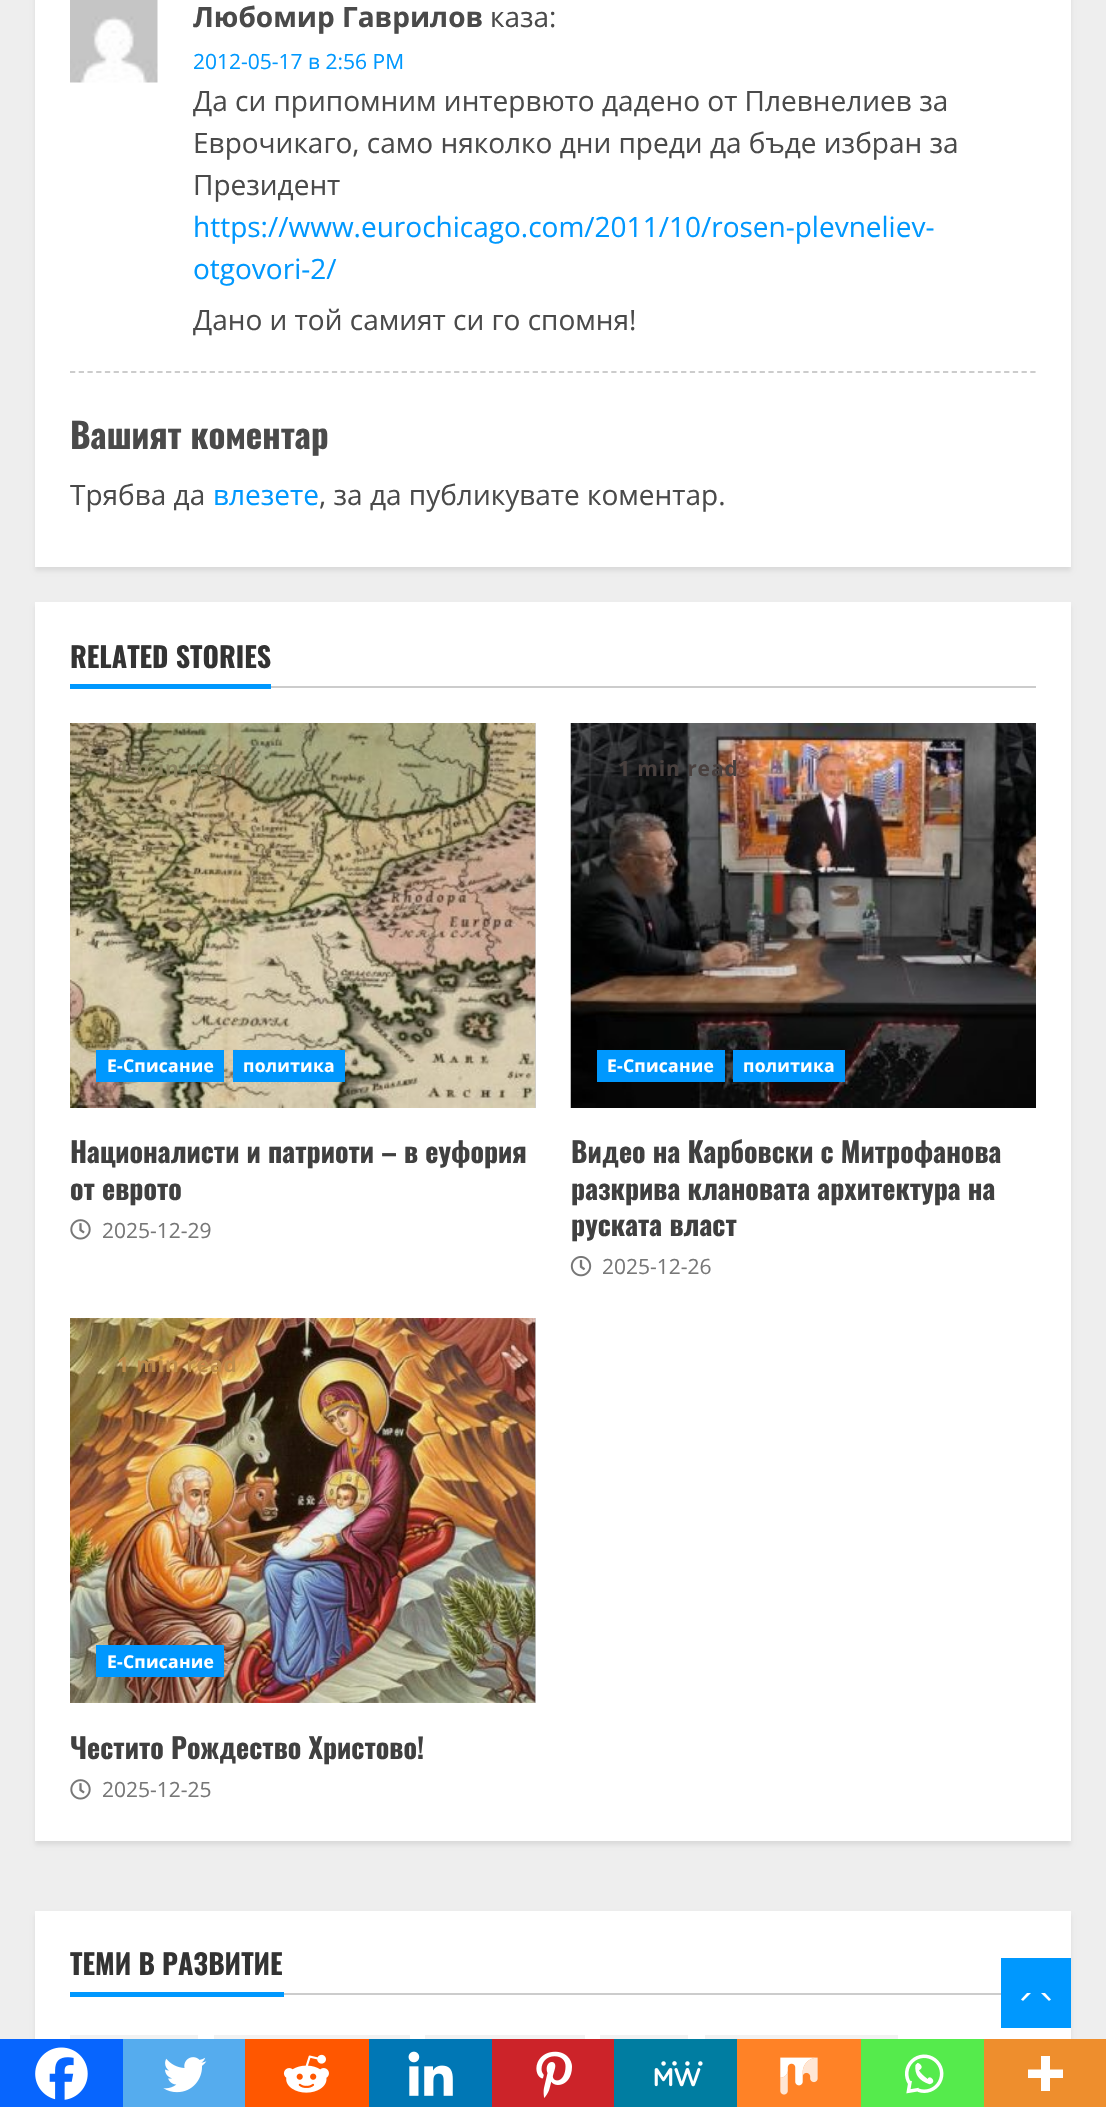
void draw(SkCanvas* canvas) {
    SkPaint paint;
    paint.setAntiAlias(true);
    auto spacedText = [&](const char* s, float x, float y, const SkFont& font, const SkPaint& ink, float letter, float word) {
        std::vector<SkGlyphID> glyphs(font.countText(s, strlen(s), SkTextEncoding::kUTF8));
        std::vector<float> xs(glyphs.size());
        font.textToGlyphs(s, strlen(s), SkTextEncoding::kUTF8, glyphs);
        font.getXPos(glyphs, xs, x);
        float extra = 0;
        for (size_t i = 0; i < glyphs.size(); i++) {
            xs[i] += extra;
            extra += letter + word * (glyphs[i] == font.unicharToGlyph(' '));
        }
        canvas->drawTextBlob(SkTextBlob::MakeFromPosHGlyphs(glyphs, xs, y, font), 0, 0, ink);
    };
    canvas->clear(0xFFEEEEEE);
    paint.setColor(0x14000000);
    paint.setMaskFilter(SkMaskFilter::MakeBlur(kNormal_SkBlurStyle, 2));
    canvas->drawRect(SkRect::MakeXYWH(35, -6, 1036, 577), paint);
    paint.setMaskFilter(nullptr);
    paint.setColor(0xFFFFFFFF);
    canvas->drawRect(SkRect::MakeXYWH(35, 0, 1036, 567), paint);
    paint.setStyle(SkPaint::kStroke_Style);
    paint.setStrokeWidth(1.8f);
    paint.setColor(0xFFCCCCCC);
    paint.setPathEffect(SkDashPathEffect::Make({{5.25f, 3.48f}}, 0));
    canvas->drawPath(SkPathBuilder().moveTo(70, 372).lineTo(1036, 372).detach(), paint);
    paint.setPathEffect(nullptr);
    canvas->drawImageRect(SkImages::DeferredFromEncodedData(SkData::MakeFromFileName("img1.png")), SkRect::MakeXYWH(70, 0, 88, 83), SkSamplingOptions());
    SkFont font1(fontMgr->matchFamilyStyle("Open Sans", SkFontStyle::Bold()), 28);
    font1.setSubpixel(true);
    paint.setStyle(SkPaint::kFill_Style);
    paint.setColor(0xFF4A4A4A);
    canvas->drawString("Любомир Гаврилов", 193, 27, font1, paint);
    SkFont font2(fontMgr->matchFamilyStyle("Open Sans", SkFontStyle::Normal()), 28);
    font2.setSubpixel(true);
    canvas->drawString("каза:", 490, 27, font2, paint);
    SkFont font3(fontMgr->matchFamilyStyle("Open Sans", SkFontStyle::Normal()), 21);
    font3.setSubpixel(true);
    paint.setColor(0xFF0098FE);
    canvas->drawString("2012-05-17 в 2:56 PM", 193, 69, font3, paint);
    paint.setColor(0xFF4A4A4A);
    canvas->drawString("Да си припомним интервюто дадено от Плевнелиев за", 193, 111, font2, paint);
    canvas->drawString("Еврочикаго, само няколко дни преди да бъде избран за", 193, 153, font2, paint);
    canvas->drawString("Президент", 193, 195, font2, paint);
    paint.setColor(0xFF0098FE);
    canvas->drawString("https://www.eurochicago.com/2011/10/rosen-plevneliev-", 193, 237, font2, paint);
    canvas->drawString("otgovori-2/", 193, 279, font2, paint);
    paint.setColor(0xFF4A4A4A);
    canvas->drawString("Дано и той самият си го спомня!", 193, 330, font2, paint);
    SkFont font4(fontMgr->matchFamilyStyle("Oswald", SkFontStyle::Bold()), 35);
    font4.setSubpixel(true);
    canvas->drawString("Вашият коментар", 70, 449, font4, paint);
    canvas->drawString("Трябва да", 70, 505, font2, paint);
    paint.setColor(0xFF0098FE);
    canvas->drawString("влезете", 213, 505, font2, paint);
    paint.setColor(0xFF4A4A4A);
    canvas->drawString(", за да публикувате коментар.", 319, 505, font2, paint);
    paint.setColor(0x14000000);
    paint.setMaskFilter(SkMaskFilter::MakeBlur(kNormal_SkBlurStyle, 2));
    canvas->drawRect(SkRect::MakeXYWH(35, 606, 1036, 1239), paint);
    paint.setMaskFilter(nullptr);
    paint.setColor(0xFFFFFFFF);
    canvas->drawRect(SkRect::MakeXYWH(35, 602, 1036, 1239), paint);
    paint.setColor(0xFFCCCCCC);
    canvas->drawRect(SkRect::MakeXYWH(271, 686, 765, 2), paint);
    SkFont font5(fontMgr->matchFamilyStyle("Oswald", SkFontStyle::Bold()), 28);
    font5.setSubpixel(true);
    paint.setColor(0xFF333333);
    canvas->drawString("RELATED STORIES", 70, 668, font5, paint);
    paint.setColor(0xFF0098FE);
    canvas->drawRect(SkRect::MakeXYWH(70, 684, 201, 5), paint);
    paint.setColor(0xFFCCCCCC);
    canvas->drawRect(SkRect::MakeXYWH(535, 723, 1, 385), paint);
    canvas->drawImageRect(SkImages::DeferredFromEncodedData(SkData::MakeFromFileName("img2.png")), SkRect::MakeXYWH(70, 723, 466, 385), SkSamplingOptions());
    SkFont font6(fontMgr->matchFamilyStyle("Open Sans", SkFontStyle::Bold()), 21);
    font6.setSubpixel(true);
    paint.setColor(0xFF898260);
    spacedText("1 min read", 117, 776, font6, paint, 0.9f, 0);
    paint.setColor(0xFF0098FE);
    canvas->drawRect(SkRect::MakeXYWH(96, 1050, 128, 32), paint);
    SkFont font7(fontMgr->matchFamilyStyle("Open Sans", SkFontStyle::Bold()), 17.5f);
    font7.setSubpixel(true);
    paint.setColor(0xFFFFFFFF);
    spacedText("Е-Списание", 107, 1072, font7, paint, 0.25f, 0);
    paint.setColor(0xFF0098FE);
    canvas->drawRect(SkRect::MakeXYWH(233, 1050, 112, 32), paint);
    paint.setColor(0xFFFFFFFF);
    spacedText("политика", 243, 1072, font7, paint, 0.25f, 0);
    paint.setColor(0xFF404040);
    canvas->drawString("Националисти и патриоти – в еуфория", 70, 1163, font5, paint);
    canvas->drawString("от еврото", 70, 1200, font5, paint);
    canvas->drawImageRect(SkImages::DeferredFromEncodedData(SkData::MakeFromFileName("img3.png")), SkRect::MakeXYWH(70, 1219, 21, 21), SkSamplingOptions());
    paint.setColor(0xFF777777);
    canvas->drawString("2025-12-29", 102, 1238, font3, paint);
    canvas->drawImageRect(SkImages::DeferredFromEncodedData(SkData::MakeFromFileName("img4.png")), SkRect::MakeXYWH(570, 723, 466, 385), SkSamplingOptions());
    paint.setColor(0xFF49403E);
    spacedText("1 min read", 618, 776, font6, paint, 0.9f, 0);
    paint.setColor(0xFF0098FE);
    canvas->drawRect(SkRect::MakeXYWH(597, 1050, 128, 32), paint);
    paint.setColor(0xFFFFFFFF);
    spacedText("Е-Списание", 607, 1072, font7, paint, 0.25f, 0);
    paint.setColor(0xFF0098FE);
    canvas->drawRect(SkRect::MakeXYWH(733, 1050, 112, 32), paint);
    paint.setColor(0xFFFFFFFF);
    spacedText("политика", 743, 1072, font7, paint, 0.25f, 0);
    paint.setColor(0xFF404040);
    canvas->drawString("Видео на Карбовски с Митрофанова", 571, 1163, font5, paint);
    canvas->drawString("разкрива клановата архитектура на", 571, 1200, font5, paint);
    canvas->drawString("руската власт", 571, 1236, font5, paint);
    canvas->drawImageRect(SkImages::DeferredFromEncodedData(SkData::MakeFromFileName("img5.png")), SkRect::MakeXYWH(570, 1256, 22, 21), SkSamplingOptions());
    paint.setColor(0xFF777777);
    canvas->drawString("2025-12-26", 602, 1274, font3, paint);
    paint.setColor(0xFFCCCCCC);
    canvas->drawRect(SkRect::MakeXYWH(535, 1318, 1, 385), paint);
    canvas->drawImageRect(SkImages::DeferredFromEncodedData(SkData::MakeFromFileName("img6.png")), SkRect::MakeXYWH(70, 1318, 466, 385), SkSamplingOptions());
    paint.setColor(0xFFBD8C4C);
    spacedText("1 min read", 117, 1372, font6, paint, 0.9f, 0);
    paint.setColor(0xFF0098FE);
    canvas->drawRect(SkRect::MakeXYWH(96, 1645, 128, 32), paint);
    paint.setColor(0xFFFFFFFF);
    spacedText("Е-Списание", 107, 1668, font7, paint, 0.25f, 0);
    paint.setColor(0xFF404040);
    canvas->drawString("Честито Рождество Христово!", 70, 1759, font5, paint);
    canvas->drawImageRect(SkImages::DeferredFromEncodedData(SkData::MakeFromFileName("img3.png")), SkRect::MakeXYWH(70, 1779, 21, 21), SkSamplingOptions());
    paint.setColor(0xFF777777);
    canvas->drawString("2025-12-25", 102, 1797, font3, paint);
    paint.setColor(0x14000000);
    paint.setMaskFilter(SkMaskFilter::MakeBlur(kNormal_SkBlurStyle, 2));
    canvas->drawRect(SkRect::MakeXYWH(35, 1915, 1036, 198), paint);
    paint.setMaskFilter(nullptr);
    paint.setColor(0xFF0765FE);
    canvas->drawRect(SkRect::MakeXYWH(0, 2039, 123, 68), paint);
    canvas->drawImageRect(SkImages::DeferredFromEncodedData(SkData::MakeFromFileName("img7.png")), SkRect::MakeXYWH(35, 2047, 53, 53), SkSamplingOptions());
    paint.setColor(0xFF55ACEE);
    canvas->drawRect(SkRect::MakeXYWH(123, 2039, 122, 68), paint);
    canvas->drawImageRect(SkImages::DeferredFromEncodedData(SkData::MakeFromFileName("img8.png")), SkRect::MakeXYWH(163, 2057, 44, 36), SkSamplingOptions());
    paint.setColor(0xFFFF5700);
    canvas->drawRect(SkRect::MakeXYWH(245, 2039, 124, 68), paint);
    canvas->drawImageRect(SkImages::DeferredFromEncodedData(SkData::MakeFromFileName("img9.png")), SkRect::MakeXYWH(283, 2054, 46, 39), SkSamplingOptions());
    paint.setColor(0xFF0077B5);
    canvas->drawRect(SkRect::MakeXYWH(369, 2039, 123, 68), paint);
    canvas->drawImageRect(SkImages::DeferredFromEncodedData(SkData::MakeFromFileName("img10.png")), SkRect::MakeXYWH(408, 2051, 45, 45), SkSamplingOptions());
    paint.setColor(0xFFCC2329);
    canvas->drawRect(SkRect::MakeXYWH(492, 2039, 122, 68), paint);
    canvas->drawImageRect(SkImages::DeferredFromEncodedData(SkData::MakeFromFileName("img11.png")), SkRect::MakeXYWH(536, 2051, 36, 47), SkSamplingOptions());
    paint.setColor(0xFF007DA1);
    canvas->drawRect(SkRect::MakeXYWH(614, 2039, 123, 68), paint);
    canvas->drawImageRect(SkImages::DeferredFromEncodedData(SkData::MakeFromFileName("img12.png")), SkRect::MakeXYWH(654, 2061, 49, 26), SkSamplingOptions());
    paint.setColor(0xFFFF8226);
    canvas->drawRect(SkRect::MakeXYWH(737, 2039, 124, 68), paint);
    canvas->drawImageRect(SkImages::DeferredFromEncodedData(SkData::MakeFromFileName("img13.png")), SkRect::MakeXYWH(780, 2057, 38, 38), SkSamplingOptions());
    paint.setColor(0xFF55EB4C);
    canvas->drawRect(SkRect::MakeXYWH(861, 2039, 123, 68), paint);
    canvas->drawImageRect(SkImages::DeferredFromEncodedData(SkData::MakeFromFileName("img14.png")), SkRect::MakeXYWH(905, 2054, 39, 40), SkSamplingOptions());
    paint.setColor(0xFFEE8E2D);
    canvas->drawRect(SkRect::MakeXYWH(984, 2039, 122, 68), paint);
    paint.setColor(0xFFFFFFFF);
    canvas->drawPath(SkPathBuilder(SkPathFillType::kEvenOdd).moveTo(1050, 2069.5f).lineTo(1050, 2056).lineTo(1041, 2056).lineTo(1041, 2069.5f).lineTo(1028, 2069.5f).lineTo(1028, 2078).lineTo(1041, 2078).lineTo(1041, 2091).lineTo(1050, 2091).lineTo(1050, 2078).lineTo(1063, 2078).lineTo(1063, 2069.5f).close().detach(), paint);
    canvas->drawRect(SkRect::MakeXYWH(35, 1911, 1036, 128), paint);
    paint.setColor(0xFFCCCCCC);
    canvas->drawRect(SkRect::MakeXYWH(284, 1993, 717, 2), paint);
    paint.setColor(0xFF333333);
    canvas->drawString("ТЕМИ В РАЗВИТИЕ", 70, 1975, font5, paint);
    paint.setColor(0xFF0098FE);
    canvas->drawRect(SkRect::MakeXYWH(70, 1992, 214, 5), paint);
    paint.setColor(0xFFF2F2F2);
    canvas->drawRect(SkRect::MakeXYWH(70, 2035, 128, 4), paint);
    canvas->drawRect(SkRect::MakeXYWH(214, 2035, 196, 4), paint);
    canvas->drawRect(SkRect::MakeXYWH(425, 2035, 160, 4), paint);
    canvas->drawRect(SkRect::MakeXYWH(600, 2035, 88, 4), paint);
    canvas->drawRect(SkRect::MakeXYWH(705, 2035, 193, 4), paint);
    paint.setColor(0xFF0098FE);
    canvas->drawRect(SkRect::MakeXYWH(1001, 1958, 70, 70), paint);
    paint.setColor(0xFFFFFFFF);
    canvas->drawPath(SkPathBuilder().moveTo(1027, 2002).lineTo(1045, 2002).cubicTo(1047, 2002, 1049.5f, 2001, 1051, 1999.5f).lineTo(1045, 1993).lineTo(1027, 1993).lineTo(1021, 1999.5f).cubicTo(1022.5f, 2001, 1025, 2002, 1027, 2002).close().detach(), paint);
    paint.setColor(0xFF0098FE);
    canvas->drawPath(SkPathBuilder().moveTo(1053.5f, 2005.5f).lineTo(1018.5f, 2005.5f).lineTo(1036, 1988).close().detach(), paint);
}
